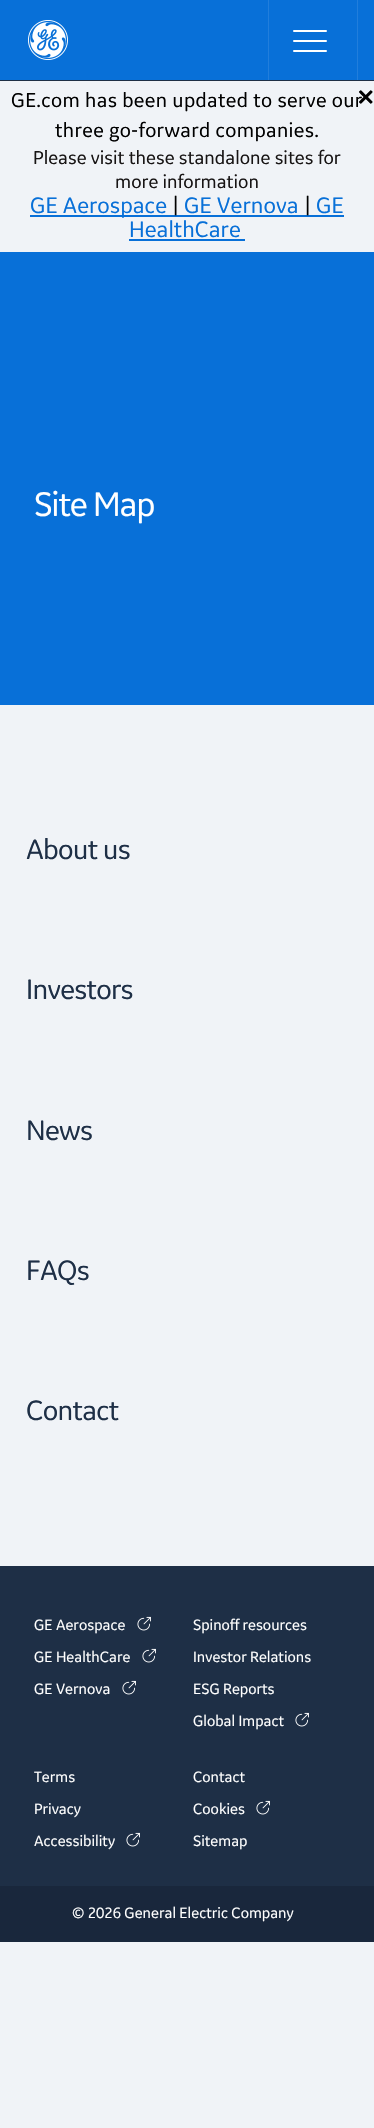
void draw(SkCanvas* canvas) {
    SkPaint paint;
    paint.setAntiAlias(true);
    auto spacedText = [&](const char* s, float x, float y, const SkFont& font, const SkPaint& ink, float letter, float word) {
        std::vector<SkGlyphID> glyphs(font.countText(s, strlen(s), SkTextEncoding::kUTF8));
        std::vector<float> xs(glyphs.size());
        font.textToGlyphs(s, strlen(s), SkTextEncoding::kUTF8, glyphs);
        font.getXPos(glyphs, xs, x);
        float extra = 0;
        for (size_t i = 0; i < glyphs.size(); i++) {
            xs[i] += extra;
            extra += letter + word * (glyphs[i] == font.unicharToGlyph(' '));
        }
        canvas->drawTextBlob(SkTextBlob::MakeFromPosHGlyphs(glyphs, xs, y, font), 0, 0, ink);
    };
    canvas->clear(0xFFF0F3F7);
    paint.setColor(0xFF0870D8);
    canvas->drawRect(SkRect::MakeXYWH(0, 0, 374, 80), paint);
    paint.setColor(0xFF1E2F46);
    canvas->drawRect(SkRect::MakeXYWH(0, 80, 374, 1), paint);
    canvas->drawImageRect(SkImages::DeferredFromEncodedData(SkData::MakeFromFileName("img1.png")), SkRect::MakeXYWH(28, 20, 40, 40), SkSamplingOptions());
    paint.setColor(0xFF217EDC);
    canvas->drawRect(SkRect::MakeXYWH(357, 0, 1, 80), paint);
    canvas->drawRect(SkRect::MakeXYWH(268, 0, 1, 80), paint);
    paint.setColor(0xFFFFFFFF);
    canvas->drawRoundRect(SkRect::MakeXYWH(293, 30, 34, 2), 1, 1, paint);
    canvas->drawRoundRect(SkRect::MakeXYWH(293, 40, 34, 2), 1, 1, paint);
    canvas->drawRoundRect(SkRect::MakeXYWH(293, 50, 34, 2), 1, 1, paint);
    SkFont font1(fontMgr->matchFamilyStyle("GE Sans", SkFontStyle::Normal()), 21.5f);
    font1.setSubpixel(true);
    paint.setColor(0xFF000000);
    spacedText("GE.com has been updated to serve our", 11, 107, font1, paint, 0.35f, 0);
    spacedText("three go-forward companies.", 55, 137, font1, paint, 0.35f, 0);
    SkFont font2(fontMgr->matchFamilyStyle("GE Sans", SkFontStyle::Normal()), 20);
    font2.setSubpixel(true);
    paint.setColor(0xFF171414);
    canvas->drawString("Please visit these standalone sites for", 33, 164, font2, paint);
    canvas->drawString("more information", 115, 188, font2, paint);
    paint.setColor(0xFF0870D8);
    canvas->drawRect(SkRect::MakeXYWH(30, 215, 314, 2), paint);
    SkFont font3(fontMgr->matchFamilyStyle("GE Sans", SkFontStyle::Normal()), 24);
    font3.setSubpixel(true);
    canvas->drawString("GE Aerospace", 30, 213, font3, paint);
    paint.setColor(0xFF000000);
    canvas->drawString("|", 172, 213, font3, paint);
    paint.setColor(0xFF0870D8);
    canvas->drawString("GE Vernova", 184, 213, font3, paint);
    paint.setColor(0xFF000000);
    canvas->drawString("|", 304, 213, font3, paint);
    paint.setColor(0xFF0870D8);
    canvas->drawString("GE", 316, 213, font3, paint);
    canvas->drawString("HealthCare", 129, 237, font3, paint);
    canvas->drawRect(SkRect::MakeXYWH(129, 239, 116, 2), paint);
    SkFont font4(fontMgr->matchFamilyStyle("GE Sans", SkFontStyle::Bold()), 32);
    font4.setSubpixel(true);
    paint.setColor(0xFF000000);
    canvas->drawString("×", 357, 105, font4, paint);
    paint.setColor(0xFF0870D8);
    canvas->drawRect(SkRect::MakeXYWH(0, 252, 374, 453), paint);
    SkFont font5(fontMgr->matchFamilyStyle("GE Sans", SkFontStyle::Normal()), 36.5f);
    font5.setSubpixel(true);
    paint.setColor(0xFFFFFFFF);
    spacedText("Site Map", 34, 516, font5, paint, -1.25f, 0);
    SkFont font6(fontMgr->matchFamilyStyle("GE Sans", SkFontStyle::Normal()), 30);
    font6.setSubpixel(true);
    paint.setColor(0xFF1E2F46);
    spacedText("About us", 26, 859, font6, paint, -0.75f, 0);
    spacedText("Investors", 26, 999, font6, paint, -0.75f, 0);
    spacedText("News", 26, 1140, font6, paint, -0.75f, 0);
    spacedText("FAQs", 26, 1280, font6, paint, -0.75f, 0);
    spacedText("Contact", 26, 1420, font6, paint, -0.75f, 0);
    canvas->drawRect(SkRect::MakeXYWH(0, 1566, 374, 320), paint);
    SkFont font7(fontMgr->matchFamilyStyle("GE Sans", SkFontStyle::Normal()), 16);
    font7.setSubpixel(true);
    paint.setColor(0xFFFFFFFF);
    canvas->drawString("GE Aerospace", 34, 1630, font7, paint);
    canvas->drawImageRect(SkImages::DeferredFromEncodedData(SkData::MakeFromFileName("img2.png")), SkRect::MakeXYWH(137, 1616, 14, 15), SkSamplingOptions());
    canvas->drawString("GE HealthCare", 34, 1662, font7, paint);
    canvas->drawImageRect(SkImages::DeferredFromEncodedData(SkData::MakeFromFileName("img2.png")), SkRect::MakeXYWH(142, 1648, 14, 15), SkSamplingOptions());
    canvas->drawString("GE Vernova", 34, 1694, font7, paint);
    canvas->drawImageRect(SkImages::DeferredFromEncodedData(SkData::MakeFromFileName("img2.png")), SkRect::MakeXYWH(122, 1680, 14, 15), SkSamplingOptions());
    canvas->drawString("Spinoff resources", 193, 1630, font7, paint);
    canvas->drawString("Investor Relations", 193, 1662, font7, paint);
    canvas->drawString("ESG Reports", 193, 1694, font7, paint);
    canvas->drawString("Global Impact", 193, 1726, font7, paint);
    canvas->drawImageRect(SkImages::DeferredFromEncodedData(SkData::MakeFromFileName("img2.png")), SkRect::MakeXYWH(295, 1712, 14, 15), SkSamplingOptions());
    canvas->drawString("Terms", 34, 1782, font7, paint);
    canvas->drawString("Privacy", 34, 1814, font7, paint);
    canvas->drawString("Accessibility", 34, 1846, font7, paint);
    canvas->drawImageRect(SkImages::DeferredFromEncodedData(SkData::MakeFromFileName("img2.png")), SkRect::MakeXYWH(126, 1832, 14, 15), SkSamplingOptions());
    canvas->drawString("Contact", 193, 1782, font7, paint);
    canvas->drawString("Cookies", 193, 1814, font7, paint);
    canvas->drawImageRect(SkImages::DeferredFromEncodedData(SkData::MakeFromFileName("img2.png")), SkRect::MakeXYWH(256, 1800, 14, 15), SkSamplingOptions());
    canvas->drawString("Sitemap", 193, 1846, font7, paint);
    paint.setColor(0xFF19273C);
    canvas->drawRect(SkRect::MakeXYWH(0, 1886, 374, 56), paint);
    paint.setColor(0xFFFFFFFF);
    canvas->drawString("© 2026 General Electric Company", 72, 1918, font7, paint);
}
